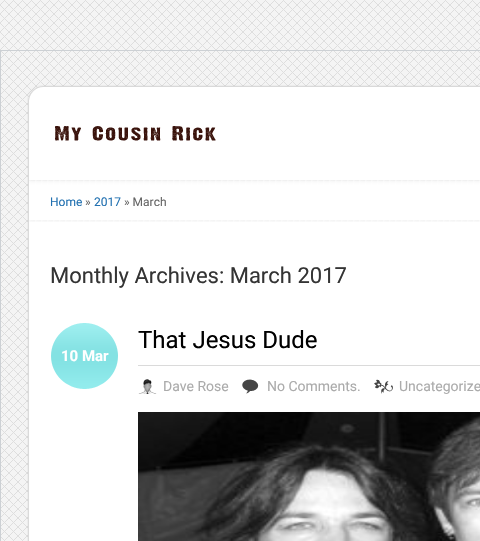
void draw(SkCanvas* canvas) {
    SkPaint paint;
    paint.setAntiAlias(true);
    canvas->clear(0xFFFFFFFF);
    canvas->drawImageRect(SkImages::DeferredFromEncodedData(SkData::MakeFromFileName("img1.png")), SkRect::MakeXYWH(0, 0, 480, 541), SkSamplingOptions());
    paint.setStyle(SkPaint::kStroke_Style);
    paint.setStrokeWidth(1);
    paint.setColor(0xFFCCD0D4);
    canvas->drawRect(SkRect::MakeXYWH(0.5f, 50.5f, 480, 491), paint);
    canvas->drawImageRect(SkImages::DeferredFromEncodedData(SkData::MakeFromFileName("img2.png")), SkRect::MakeXYWH(27, 85, 453, 15), SkSamplingOptions());
    canvas->drawImageRect(SkImages::DeferredFromEncodedData(SkData::MakeFromFileName("img3.png")), SkRect::MakeXYWH(27, 100, 453, 441), SkSamplingOptions());
    canvas->drawImageRect(SkImages::DeferredFromEncodedData(SkData::MakeFromFileName("img4.png")), SkRect::MakeXYWH(55, 126, 161, 15), SkSamplingOptions());
    canvas->drawImageRect(SkImages::DeferredFromEncodedData(SkData::MakeFromFileName("img5.png")), SkRect::MakeXYWH(29, 180, 451, 42), SkSamplingOptions());
    SkFont font1(fontMgr->matchFamilyStyle("Roboto", SkFontStyle::Normal()), 12);
    font1.setSubpixel(true);
    paint.setStyle(SkPaint::kFill_Style);
    paint.setColor(0xFF2271B1);
    canvas->drawString("Home", 50, 206, font1, paint);
    paint.setColor(0xFF666666);
    canvas->drawString("»", 85, 206, font1, paint);
    paint.setColor(0xFF2271B1);
    canvas->drawString("2017", 94, 206, font1, paint);
    paint.setColor(0xFF666666);
    canvas->drawString("» March", 124, 206, font1, paint);
    SkFont font2(fontMgr->matchFamilyStyle("Roboto", SkFontStyle::Normal()), 22);
    font2.setSubpixel(true);
    paint.setColor(0xFF343434);
    canvas->drawString("Monthly Archives: March 2017", 50, 283, font2, paint);
    paint.setColor(0xFFDADADA);
    canvas->drawRect(SkRect::MakeXYWH(138, 365, 342, 1), paint);
    SkFont font3(fontMgr->matchFamilyStyle("Roboto", SkFontStyle::Normal()), 24);
    font3.setSubpixel(true);
    paint.setColor(0xFF000000);
    canvas->drawString("That Jesus Dude", 138, 348, font3, paint);
    canvas->drawImageRect(SkImages::DeferredFromEncodedData(SkData::MakeFromFileName("img6.png")), SkRect::MakeXYWH(51, 323, 67, 66), SkSamplingOptions());
    SkFont font4(fontMgr->matchFamilyStyle("Roboto", SkFontStyle::Bold()), 15);
    font4.setSubpixel(true);
    paint.setColor(0xFFFFFFFF);
    canvas->drawString("10 Mar", 61, 361, font4, paint);
    canvas->drawImageRect(SkImages::DeferredFromEncodedData(SkData::MakeFromFileName("img7.png")), SkRect::MakeXYWH(138, 379, 19, 15), SkSamplingOptions());
    SkFont font5(fontMgr->matchFamilyStyle("Roboto", SkFontStyle::Normal()), 14);
    font5.setSubpixel(true);
    paint.setColor(0xFFABABAB);
    canvas->drawString("Dave Rose", 163, 391, font5, paint);
    canvas->drawImageRect(SkImages::DeferredFromEncodedData(SkData::MakeFromFileName("img8.png")), SkRect::MakeXYWH(242, 379, 17, 15), SkSamplingOptions());
    canvas->drawString("No Comments.", 267, 391, font5, paint);
    canvas->drawImageRect(SkImages::DeferredFromEncodedData(SkData::MakeFromFileName("img9.png")), SkRect::MakeXYWH(374, 379, 19, 15), SkSamplingOptions());
    canvas->drawString("Uncategorize", 399, 391, font5, paint);
    canvas->drawImageRect(SkImages::DeferredFromEncodedData(SkData::MakeFromFileName("img10.png")), SkRect::MakeXYWH(138, 412, 342, 129), SkSamplingOptions());
}
